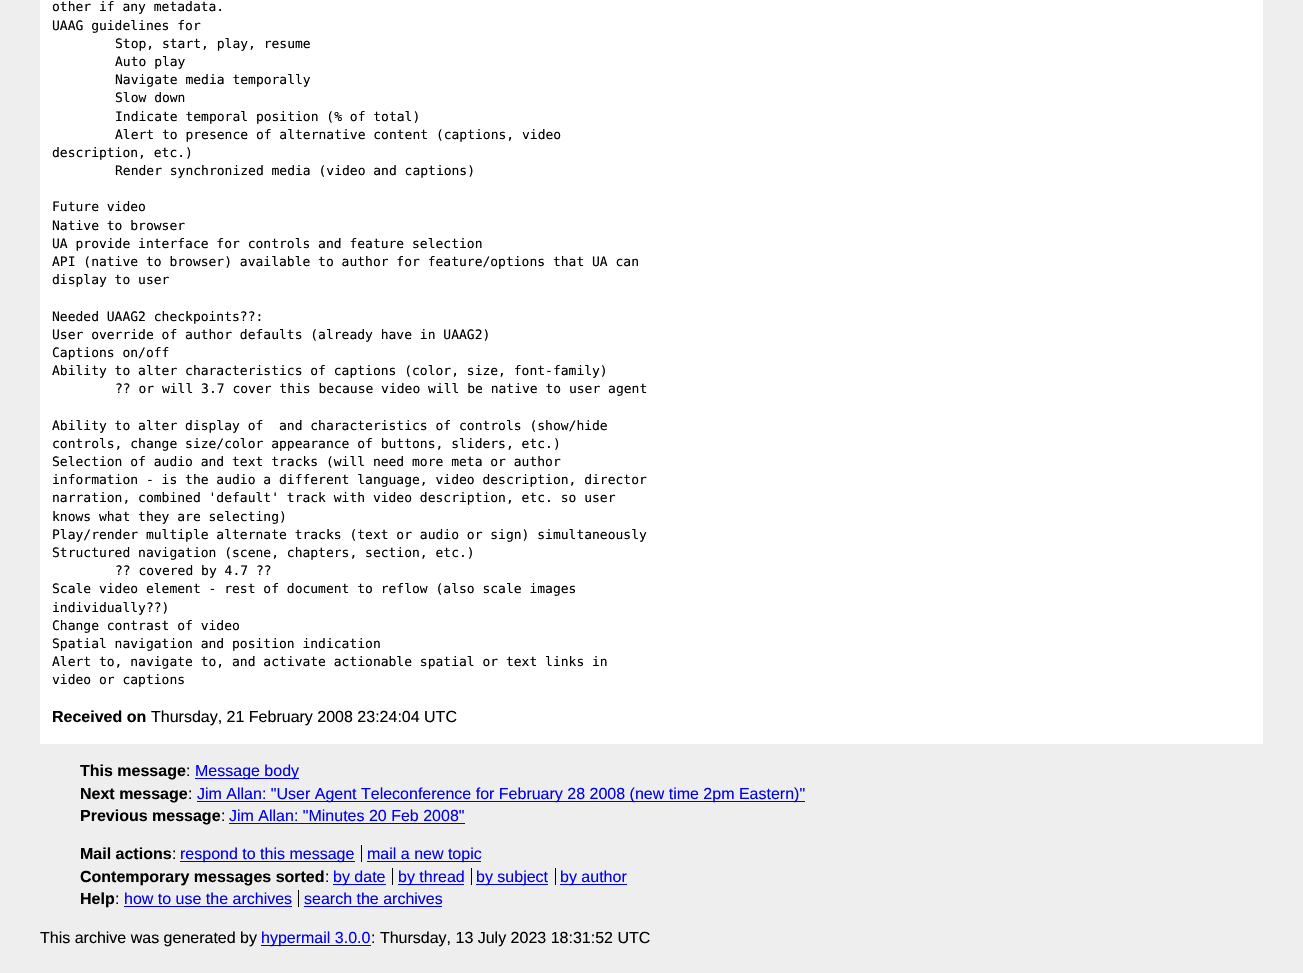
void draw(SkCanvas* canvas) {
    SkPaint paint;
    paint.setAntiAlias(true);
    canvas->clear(0xFFEEEEEE);
    paint.setColor(0xFFFFFFFF);
    canvas->drawRect(SkRect::MakeXYWH(40, 0, 1223, 744), paint);
    SkFont font1(fontMgr->matchFamilyStyle("DejaVu Sans Mono", SkFontStyle::Normal()), 13);
    font1.setSubpixel(true);
    paint.setColor(0xFF000000);
    canvas->drawString("other if any metadata.", 52, 11, font1, paint);
    canvas->drawString("UAAG guidelines for", 52, 30, font1, paint);
    canvas->drawString("Stop, start, play, resume", 115, 48, font1, paint);
    canvas->drawString("Auto play", 115, 66, font1, paint);
    canvas->drawString("Navigate media temporally", 115, 84, font1, paint);
    canvas->drawString("Slow down", 115, 102, font1, paint);
    canvas->drawString("Indicate temporal position (% of total)", 115, 121, font1, paint);
    canvas->drawString("Alert to presence of alternative content (captions, video", 115, 139, font1, paint);
    canvas->drawString("description, etc.)", 52, 157, font1, paint);
    canvas->drawString("Render synchronized media (video and captions)", 115, 175, font1, paint);
    canvas->drawString("Future video", 52, 211, font1, paint);
    canvas->drawString("Native to browser", 52, 230, font1, paint);
    canvas->drawString("UA provide interface for controls and feature selection", 52, 248, font1, paint);
    canvas->drawString("API (native to browser) available to author for feature/options that UA can", 52, 266, font1, paint);
    canvas->drawString("display to user", 52, 284, font1, paint);
    canvas->drawString("Needed UAAG2 checkpoints?\077:", 52, 321, font1, paint);
    canvas->drawString("User override of author defaults (already have in UAAG2)", 52, 339, font1, paint);
    canvas->drawString("Captions on/off", 52, 357, font1, paint);
    canvas->drawString("Ability to alter characteristics of captions (color, size, font-family)", 52, 375, font1, paint);
    canvas->drawString("?\077 or will 3.7 cover this because video will be native to user agent", 115, 393, font1, paint);
    canvas->drawString("Ability to alter display of  and characteristics of controls (show/hide", 52, 430, font1, paint);
    canvas->drawString("controls, change size/color appearance of buttons, sliders, etc.)", 52, 448, font1, paint);
    canvas->drawString("Selection of audio and text tracks (will need more meta or author", 52, 466, font1, paint);
    canvas->drawString("information - is the audio a different language, video description, director", 52, 484, font1, paint);
    canvas->drawString("narration, combined 'default' track with video description, etc. so user", 52, 502, font1, paint);
    canvas->drawString("knows what they are selecting)", 52, 521, font1, paint);
    canvas->drawString("Play/render multiple alternate tracks (text or audio or sign) simultaneously", 52, 539, font1, paint);
    canvas->drawString("Structured navigation (scene, chapters, section, etc.)", 52, 557, font1, paint);
    canvas->drawString("?\077 covered by 4.7 ?\077", 115, 575, font1, paint);
    canvas->drawString("Scale video element - rest of document to reflow (also scale images", 52, 593, font1, paint);
    canvas->drawString("individually?\077)", 52, 612, font1, paint);
    canvas->drawString("Change contrast of video", 52, 630, font1, paint);
    canvas->drawString("Spatial navigation and position indication", 52, 648, font1, paint);
    canvas->drawString("Alert to, navigate to, and activate actionable spatial or text links in", 52, 666, font1, paint);
    canvas->drawString("video or captions", 52, 684, font1, paint);
    SkFont font2(fontMgr->matchFamilyStyle("Liberation Sans", SkFontStyle::Bold()), 16);
    font2.setSubpixel(true);
    canvas->drawString("Received on", 52, 722, font2, paint);
    SkFont font3(fontMgr->matchFamilyStyle("Liberation Sans", SkFontStyle::Normal()), 16);
    font3.setSubpixel(true);
    canvas->drawString("Thursday, 21 February 2008 23:24:04 UTC", 151, 722, font3, paint);
    canvas->drawString("This message", 80, 776, font2, paint);
    canvas->drawString(":", 186, 776, font3, paint);
    paint.setColor(0xFF0000EE);
    canvas->drawRect(SkRect::MakeXYWH(195, 778, 104, 1), paint);
    canvas->drawString("Message body", 195, 776, font3, paint);
    paint.setColor(0xFF000000);
    canvas->drawString("Next message", 80, 799, font2, paint);
    canvas->drawString(":", 188, 799, font3, paint);
    paint.setColor(0xFF0000EE);
    canvas->drawRect(SkRect::MakeXYWH(197, 801, 608, 1), paint);
    canvas->drawString("Jim Allan: \"User Agent Teleconference for February 28 2008 (new time 2pm Eastern)\"", 197, 799, font3, paint);
    paint.setColor(0xFF000000);
    canvas->drawString("Previous message", 80, 821, font2, paint);
    canvas->drawString(":", 221, 821, font3, paint);
    paint.setColor(0xFF0000EE);
    canvas->drawString("Jim Allan: \"Minutes 20 Feb 2008\"", 229, 821, font3, paint);
    canvas->drawRect(SkRect::MakeXYWH(229, 823, 236, 1), paint);
    paint.setColor(0xFF000000);
    canvas->drawString("Mail actions", 80, 859, font2, paint);
    canvas->drawString(":", 172, 859, font3, paint);
    paint.setColor(0xFF0000EE);
    canvas->drawRect(SkRect::MakeXYWH(180, 861, 175, 1), paint);
    canvas->drawString("respond to this message", 180, 859, font3, paint);
    canvas->drawRect(SkRect::MakeXYWH(367, 861, 114, 1), paint);
    canvas->drawString("mail a new topic", 367, 859, font3, paint);
    paint.setColor(0xFF000000);
    canvas->drawRect(SkRect::MakeXYWH(361, 845, 1, 17), paint);
    canvas->drawString("Contemporary messages sorted", 80, 882, font2, paint);
    canvas->drawString(":", 325, 882, font3, paint);
    paint.setColor(0xFF0000EE);
    canvas->drawRect(SkRect::MakeXYWH(333, 884, 53, 1), paint);
    canvas->drawString("by date", 333, 882, font3, paint);
    canvas->drawRect(SkRect::MakeXYWH(398, 884, 66, 1), paint);
    canvas->drawString("by thread", 398, 882, font3, paint);
    paint.setColor(0xFF000000);
    canvas->drawRect(SkRect::MakeXYWH(392, 868, 1, 17), paint);
    paint.setColor(0xFF0000EE);
    canvas->drawRect(SkRect::MakeXYWH(476, 884, 72, 1), paint);
    canvas->drawString("by subject", 476, 882, font3, paint);
    paint.setColor(0xFF000000);
    canvas->drawRect(SkRect::MakeXYWH(471, 868, 1, 17), paint);
    paint.setColor(0xFF0000EE);
    canvas->drawRect(SkRect::MakeXYWH(560, 884, 67, 1), paint);
    canvas->drawString("by author", 560, 882, font3, paint);
    paint.setColor(0xFF000000);
    canvas->drawRect(SkRect::MakeXYWH(555, 868, 1, 17), paint);
    canvas->drawString("Help", 80, 904, font2, paint);
    canvas->drawString(":", 115, 904, font3, paint);
    paint.setColor(0xFF0000EE);
    canvas->drawString("how to use the archives", 124, 904, font3, paint);
    canvas->drawRect(SkRect::MakeXYWH(124, 906, 168, 1), paint);
    canvas->drawString("search the archives", 304, 904, font3, paint);
    paint.setColor(0xFF000000);
    canvas->drawRect(SkRect::MakeXYWH(298, 890, 1, 17), paint);
    paint.setColor(0xFF0000EE);
    canvas->drawRect(SkRect::MakeXYWH(304, 906, 138, 1), paint);
    paint.setColor(0xFF000000);
    canvas->drawString("This archive was generated by", 40, 943, font3, paint);
    paint.setColor(0xFF0000EE);
    canvas->drawRect(SkRect::MakeXYWH(261, 945, 110, 1), paint);
    canvas->drawString("hypermail 3.0.0", 261, 943, font3, paint);
    paint.setColor(0xFF000000);
    canvas->drawString(": Thursday, 13 July 2023 18:31:52 UTC", 371, 943, font3, paint);
}
